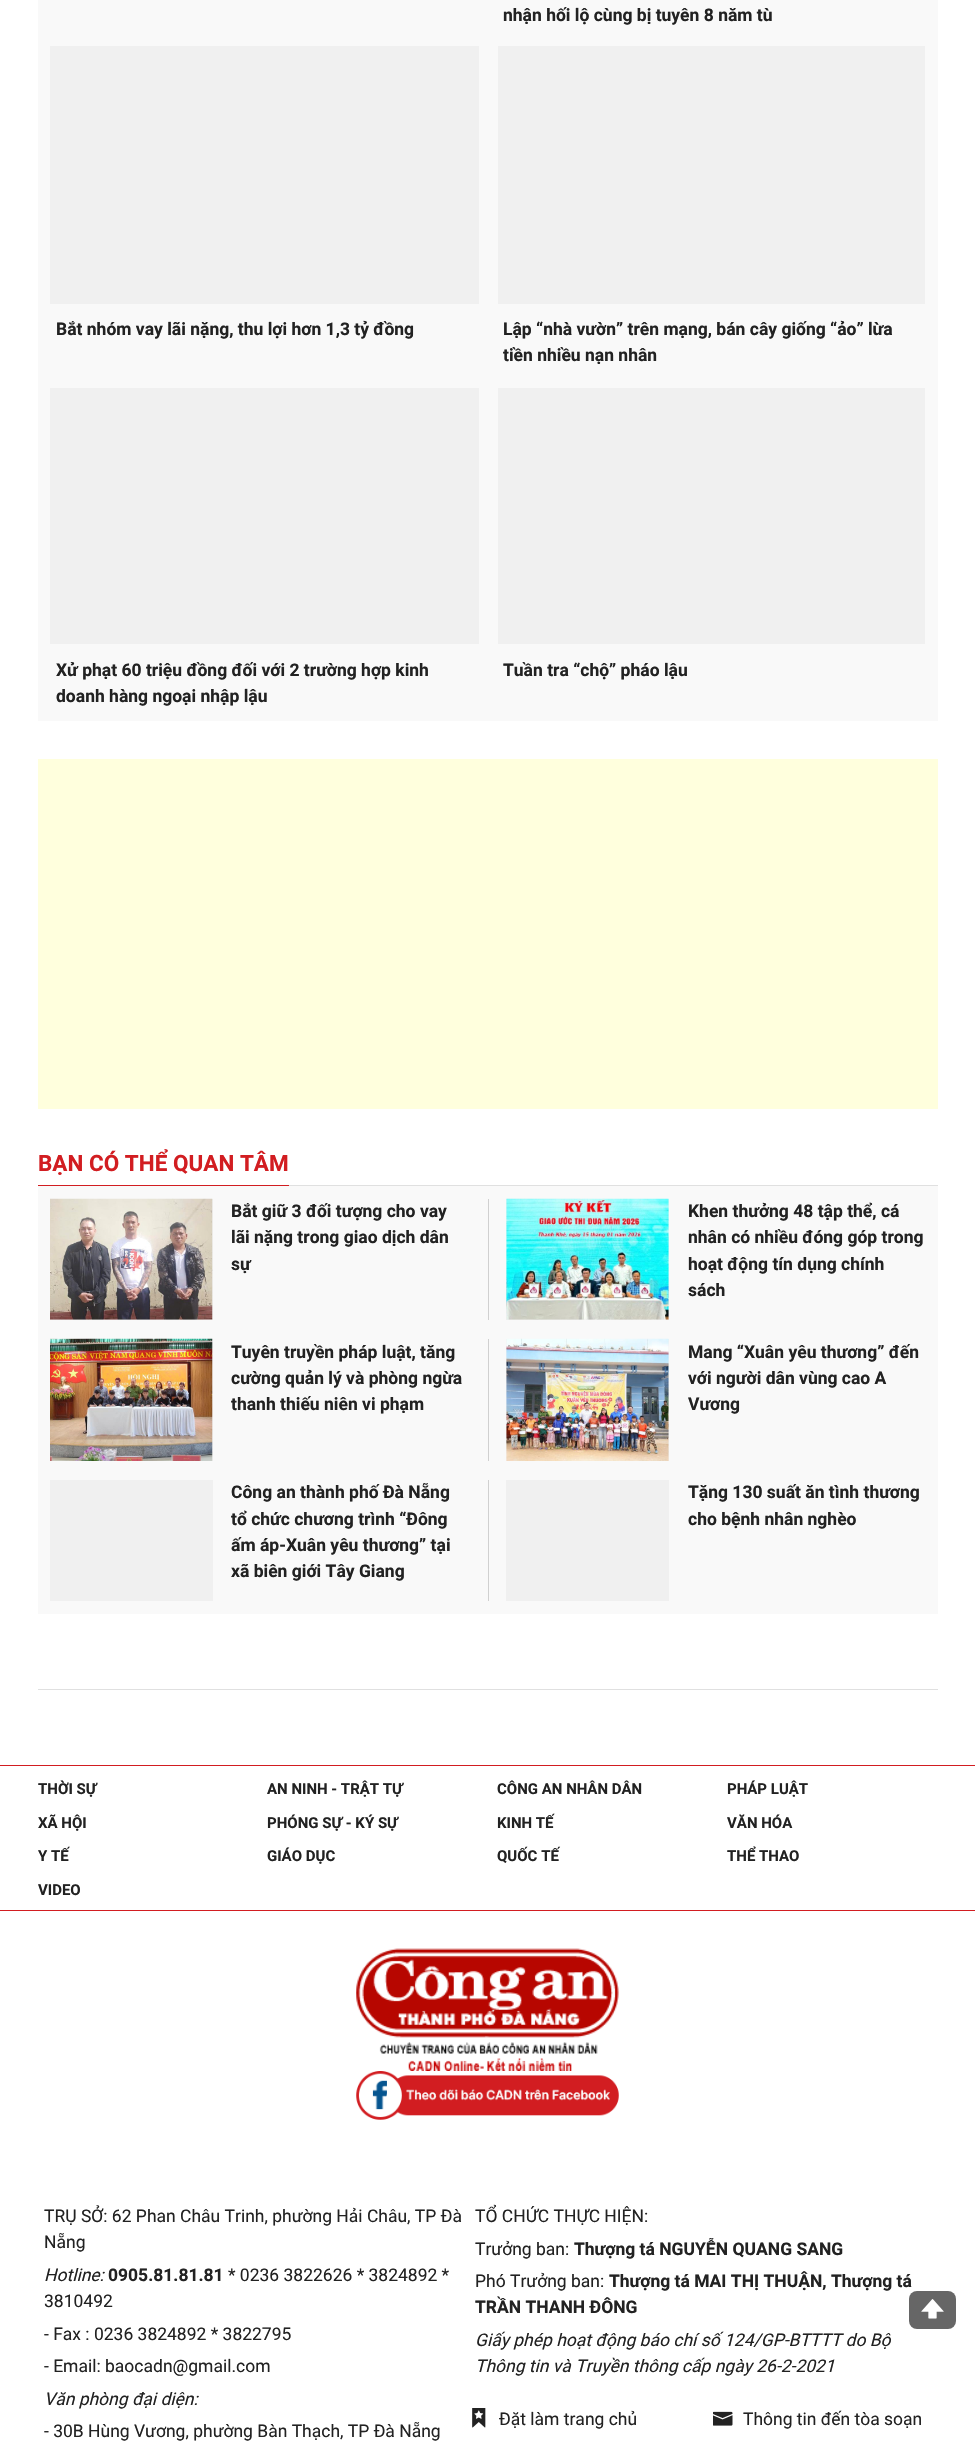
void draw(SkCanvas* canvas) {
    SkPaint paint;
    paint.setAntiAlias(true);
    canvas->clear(0xFFFFFFFF);
    paint.setColor(0xFFF9F9F9);
    canvas->drawRect(SkRect::MakeXYWH(38, 0, 900, 721), paint);
    SkFont font1(fontMgr->matchFamilyStyle("Roboto", SkFontStyle::Bold()), 17.5f);
    font1.setSubpixel(true);
    paint.setColor(0xFF222222);
    canvas->drawString("nhận hối lộ cùng bị tuyên 8 năm tù", 503, 21, font1, paint);
    paint.setColor(0xFFF0F0F0);
    canvas->drawRect(SkRect::MakeXYWH(50, 46, 429, 258), paint);
    paint.setColor(0xFF222222);
    canvas->drawString("Bắt nhóm vay lãi nặng, thu lợi hơn 1,3 tỷ đồng", 56, 335, font1, paint);
    paint.setColor(0xFFF0F0F0);
    canvas->drawRect(SkRect::MakeXYWH(498, 46, 427, 258), paint);
    paint.setColor(0xFF222222);
    canvas->drawString("Lập “nhà vườn” trên mạng, bán cây giống “ảo” lừa", 503, 335, font1, paint);
    canvas->drawString("tiền nhiều nạn nhân", 503, 361, font1, paint);
    paint.setColor(0xFFF0F0F0);
    canvas->drawRect(SkRect::MakeXYWH(50, 388, 429, 256), paint);
    paint.setColor(0xFF222222);
    canvas->drawString("Xử phạt 60 triệu đồng đối với 2 trường hợp kinh", 56, 676, font1, paint);
    canvas->drawString("doanh hàng ngoại nhập lậu", 56, 702, font1, paint);
    paint.setColor(0xFFF0F0F0);
    canvas->drawRect(SkRect::MakeXYWH(498, 388, 427, 256), paint);
    paint.setColor(0xFF222222);
    canvas->drawString("Tuần tra “chộ” pháo lậu", 503, 676, font1, paint);
    paint.setColor(0xFFFFFFDD);
    canvas->drawRect(SkRect::MakeXYWH(38, 759, 900, 350), paint);
    paint.setColor(0xFFE0E0E0);
    canvas->drawRect(SkRect::MakeXYWH(289, 1185, 649, 1), paint);
    SkFont font2(fontMgr->matchFamilyStyle("Roboto", SkFontStyle::Bold()), 22.5f);
    font2.setSubpixel(true);
    paint.setColor(0xFFD21D21);
    canvas->drawString("BẠN CÓ THỂ QUAN TÂM", 38, 1171, font2, paint);
    canvas->drawRect(SkRect::MakeXYWH(38, 1185, 251, 1), paint);
    paint.setColor(0xFFF9F9F9);
    canvas->drawRect(SkRect::MakeXYWH(38, 1186, 900, 428), paint);
    paint.setColor(0xFFF0F0F0);
    canvas->drawRect(SkRect::MakeXYWH(50, 1199, 163, 121), paint);
    canvas->drawImageRect(SkImages::DeferredFromEncodedData(SkData::MakeFromFileName("img1.png")), SkRect::MakeXYWH(50, 1198, 163, 122), SkSamplingOptions());
    paint.setColor(0xFF222222);
    canvas->drawString("Bắt giữ 3 đối tượng cho vay", 231, 1217, font1, paint);
    canvas->drawString("lãi nặng trong giao dịch dân", 231, 1243, font1, paint);
    canvas->drawString("sự", 231, 1270, font1, paint);
    paint.setColor(0xFFD0D0D0);
    canvas->drawRect(SkRect::MakeXYWH(488, 1199, 1, 121), paint);
    paint.setColor(0xFFF0F0F0);
    canvas->drawRect(SkRect::MakeXYWH(506, 1199, 163, 121), paint);
    canvas->drawImageRect(SkImages::DeferredFromEncodedData(SkData::MakeFromFileName("img2.png")), SkRect::MakeXYWH(506, 1198, 163, 122), SkSamplingOptions());
    paint.setColor(0xFF222222);
    canvas->drawString("Khen thưởng 48 tập thể, cá", 688, 1217, font1, paint);
    canvas->drawString("nhân có nhiều đóng góp trong", 688, 1243, font1, paint);
    canvas->drawString("hoạt động tín dụng chính", 688, 1270, font1, paint);
    canvas->drawString("sách", 688, 1296, font1, paint);
    paint.setColor(0xFFF0F0F0);
    canvas->drawRect(SkRect::MakeXYWH(212, 1339, 1, 122), paint);
    canvas->drawImageRect(SkImages::DeferredFromEncodedData(SkData::MakeFromFileName("img3.png")), SkRect::MakeXYWH(50, 1338, 163, 123), SkSamplingOptions());
    paint.setColor(0xFF222222);
    canvas->drawString("Tuyên truyền pháp luật, tăng", 231, 1358, font1, paint);
    canvas->drawString("cường quản lý và phòng ngừa", 231, 1384, font1, paint);
    canvas->drawString("thanh thiếu niên vi phạm", 231, 1410, font1, paint);
    paint.setColor(0xFFD0D0D0);
    canvas->drawRect(SkRect::MakeXYWH(488, 1339, 1, 122), paint);
    paint.setColor(0xFFF0F0F0);
    canvas->drawRect(SkRect::MakeXYWH(506, 1339, 163, 122), paint);
    canvas->drawImageRect(SkImages::DeferredFromEncodedData(SkData::MakeFromFileName("img4.png")), SkRect::MakeXYWH(506, 1338, 163, 123), SkSamplingOptions());
    paint.setColor(0xFF222222);
    canvas->drawString("Mang “Xuân yêu thương” đến", 688, 1358, font1, paint);
    canvas->drawString("với người dân vùng cao A", 688, 1384, font1, paint);
    canvas->drawString("Vương", 688, 1410, font1, paint);
    paint.setColor(0xFFF0F0F0);
    canvas->drawRect(SkRect::MakeXYWH(50, 1480, 163, 121), paint);
    paint.setColor(0xFF222222);
    canvas->drawString("Công an thành phố Đà Nẵng", 231, 1498, font1, paint);
    canvas->drawString("tổ chức chương trình “Đông", 231, 1525, font1, paint);
    canvas->drawString("ấm áp-Xuân yêu thương” tại", 231, 1551, font1, paint);
    canvas->drawString("xã biên giới Tây Giang", 231, 1577, font1, paint);
    paint.setColor(0xFFD0D0D0);
    canvas->drawRect(SkRect::MakeXYWH(488, 1480, 1, 121), paint);
    paint.setColor(0xFFF0F0F0);
    canvas->drawRect(SkRect::MakeXYWH(506, 1480, 163, 121), paint);
    paint.setColor(0xFF222222);
    canvas->drawString("Tặng 130 suất ăn tình thương", 688, 1498, font1, paint);
    canvas->drawString("cho bệnh nhân nghèo", 688, 1525, font1, paint);
    paint.setColor(0xFFE0E0E0);
    canvas->drawRect(SkRect::MakeXYWH(38, 1689, 900, 1), paint);
    paint.setColor(0xFFD21D21);
    canvas->drawRect(SkRect::MakeXYWH(0, 1765, 975, 1), paint);
    canvas->drawRect(SkRect::MakeXYWH(0, 1910, 975, 1), paint);
    SkFont font3(fontMgr->matchFamilyStyle("Roboto", SkFontStyle::Bold()), 15);
    font3.setSubpixel(true);
    paint.setColor(0xFF222222);
    canvas->drawString("THỜI SỰ", 38, 1794, font3, paint);
    canvas->drawString("AN NINH - TRẬT TỰ", 267, 1794, font3, paint);
    canvas->drawString("CÔNG AN NHÂN DÂN", 497, 1794, font3, paint);
    canvas->drawString("PHÁP LUẬT", 727, 1794, font3, paint);
    canvas->drawString("XÃ HỘI", 38, 1828, font3, paint);
    canvas->drawString("PHÓNG SỰ - KÝ SỰ", 267, 1828, font3, paint);
    canvas->drawString("KINH TẾ", 497, 1828, font3, paint);
    canvas->drawString("VĂN HÓA", 727, 1828, font3, paint);
    canvas->drawString("Y TẾ", 38, 1861, font3, paint);
    canvas->drawString("GIÁO DỤC", 267, 1861, font3, paint);
    canvas->drawString("QUỐC TẾ", 497, 1861, font3, paint);
    canvas->drawString("THỂ THAO", 727, 1861, font3, paint);
    canvas->drawString("VIDEO", 38, 1895, font3, paint);
    canvas->drawImageRect(SkImages::DeferredFromEncodedData(SkData::MakeFromFileName("img5.png")), SkRect::MakeXYWH(356, 1948, 263, 123), SkSamplingOptions());
    canvas->drawImageRect(SkImages::DeferredFromEncodedData(SkData::MakeFromFileName("img6.png")), SkRect::MakeXYWH(356, 2071, 263, 49), SkSamplingOptions());
    SkFont font4(fontMgr->matchFamilyStyle("Roboto", SkFontStyle::Normal()), 17.5f);
    font4.setSubpixel(true);
    canvas->drawString("TRỤ SỞ: 62 Phan Châu Trinh, phường Hải Châu, TP Đà", 44, 2222, font4, paint);
    canvas->drawString("Nẵng", 44, 2248, font4, paint);
    SkFont font5(fontMgr->matchFamilyStyle("Roboto", SkFontStyle::Italic()), 17.5f);
    font5.setSubpixel(true);
    canvas->drawString("Hotline:", 44, 2281, font5, paint);
    canvas->drawString("0905.81.81.81", 108, 2281, font1, paint);
    canvas->drawString("* 0236 3822626 * 3824892 *", 228, 2281, font4, paint);
    canvas->drawString("3810492", 44, 2307, font4, paint);
    canvas->drawString("- Fax : 0236 3824892 * 3822795", 44, 2340, font4, paint);
    canvas->drawString("- Email: baocadn@gmail.com", 44, 2372, font4, paint);
    canvas->drawString("Văn phòng đại diện:", 44, 2405, font5, paint);
    canvas->drawString("- 30B Hùng Vương, phường Bàn Thạch, TP Đà Nẵng", 44, 2437, font4, paint);
    canvas->drawString("TỔ CHỨC THỰC HIỆN:", 475, 2222, font4, paint);
    canvas->drawString("Trưởng ban:", 475, 2255, font4, paint);
    canvas->drawString("Thượng tá NGUYỄN QUANG SANG", 574, 2255, font1, paint);
    canvas->drawString("Phó Trưởng ban:", 475, 2287, font4, paint);
    canvas->drawString("Thượng tá MAI THỊ THUẬN, Thượng tá", 609, 2287, font1, paint);
    canvas->drawString("TRẦN THANH ĐÔNG", 475, 2313, font1, paint);
    canvas->drawString("Giấy phép hoạt động báo chí số 124/GP-BTTTT do Bộ", 475, 2346, font5, paint);
    canvas->drawString("Thông tin và Truyền thông cấp ngày 26-2-2021", 475, 2372, font5, paint);
    canvas->drawImageRect(SkImages::DeferredFromEncodedData(SkData::MakeFromFileName("img7.png")), SkRect::MakeXYWH(472, 2408, 14, 20), SkSamplingOptions());
    canvas->drawString("Đặt làm trang chủ", 499, 2425, font4, paint);
    canvas->drawImageRect(SkImages::DeferredFromEncodedData(SkData::MakeFromFileName("img8.png")), SkRect::MakeXYWH(713, 2411, 20, 15), SkSamplingOptions());
    canvas->drawString("Thông tin đến tòa soạn", 743, 2425, font4, paint);
    paint.setColor(0xFF666666);
    canvas->drawRoundRect(SkRect::MakeXYWH(909, 2291, 47, 38), 8, 8, paint);
    canvas->drawImageRect(SkImages::DeferredFromEncodedData(SkData::MakeFromFileName("img9.png")), SkRect::MakeXYWH(921, 2299, 23, 20), SkSamplingOptions());
}
